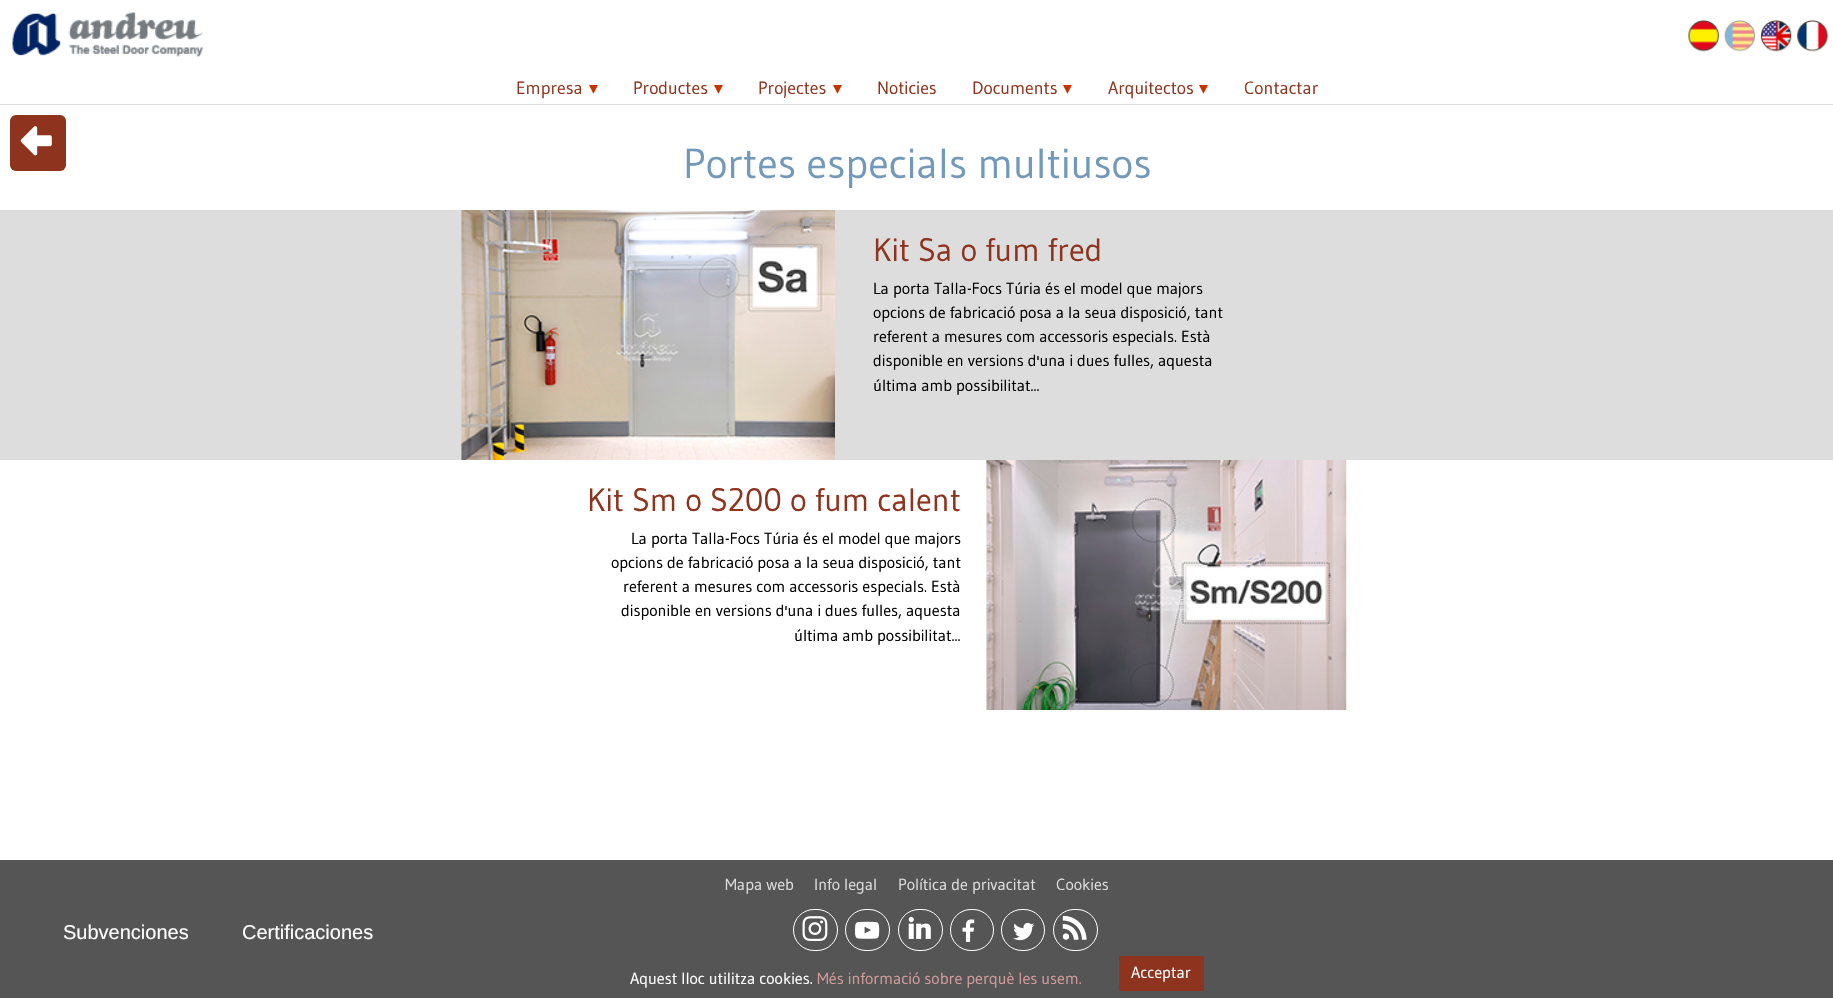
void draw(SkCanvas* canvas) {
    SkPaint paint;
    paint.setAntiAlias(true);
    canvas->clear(0xFFFFFFFF);
    canvas->drawImageRect(SkImages::DeferredFromEncodedData(SkData::MakeFromFileName("img1.png")), SkRect::MakeXYWH(12, 12, 192, 45), SkSamplingOptions());
    canvas->drawImageRect(SkImages::DeferredFromEncodedData(SkData::MakeFromFileName("img2.png")), SkRect::MakeXYWH(1688, 20, 31, 32), SkSamplingOptions());
    canvas->drawImageRect(SkImages::DeferredFromEncodedData(SkData::MakeFromFileName("img3.png")), SkRect::MakeXYWH(1724, 20, 31, 32), SkSamplingOptions());
    canvas->drawImageRect(SkImages::DeferredFromEncodedData(SkData::MakeFromFileName("img4.png")), SkRect::MakeXYWH(1761, 20, 31, 32), SkSamplingOptions());
    canvas->drawImageRect(SkImages::DeferredFromEncodedData(SkData::MakeFromFileName("img5.png")), SkRect::MakeXYWH(1797, 20, 31, 32), SkSamplingOptions());
    paint.setColor(0xFFDDDDDD);
    canvas->drawRect(SkRect::MakeXYWH(0, 104, 1833, 1), paint);
    SkFont font1(fontMgr->matchFamilyStyle("Gudea", SkFontStyle::Normal()), 17.75f);
    font1.setSubpixel(true);
    paint.setColor(0xFF8E331D);
    canvas->drawString("Empresa", 516, 94, font1, paint);
    SkFont font2(fontMgr->matchFamilyStyle("DejaVu Sans", SkFontStyle::Normal()), 17.75f);
    font2.setSubpixel(true);
    paint.setColor(0xFFC63200);
    canvas->drawString("▾", 589, 94, font2, paint);
    paint.setColor(0xFF8E331D);
    canvas->drawString("Productes", 633, 94, font1, paint);
    paint.setColor(0xFFC63200);
    canvas->drawString("▾", 714, 94, font2, paint);
    paint.setColor(0xFF8E331D);
    canvas->drawString("Projectes", 758, 94, font1, paint);
    paint.setColor(0xFFC63200);
    canvas->drawString("▾", 833, 94, font2, paint);
    paint.setColor(0xFF8E331D);
    canvas->drawString("Noticies", 877, 94, font1, paint);
    canvas->drawString("Documents", 972, 94, font1, paint);
    paint.setColor(0xFFC63200);
    canvas->drawString("▾", 1063, 94, font2, paint);
    paint.setColor(0xFF8E331D);
    canvas->drawString("Arquitectos", 1108, 94, font1, paint);
    paint.setColor(0xFFC63200);
    canvas->drawString("▾", 1199, 94, font2, paint);
    paint.setColor(0xFF8E331D);
    canvas->drawString("Contactar", 1244, 94, font1, paint);
    canvas->drawRoundRect(SkRect::MakeXYWH(10, 115, 56, 56), 6, 6, paint);
    canvas->drawImageRect(SkImages::DeferredFromEncodedData(SkData::MakeFromFileName("img6.png")), SkRect::MakeXYWH(20, 126, 32, 30), SkSamplingOptions());
    SkFont font3(fontMgr->matchFamilyStyle("Gudea", SkFontStyle::Normal()), 41.9f);
    font3.setSubpixel(true);
    paint.setColor(0xFF7299BA);
    canvas->drawString("Portes especials multiusos", 683, 178, font3, paint);
    paint.setColor(0xFFDDDDDD);
    canvas->drawRect(SkRect::MakeXYWH(0, 210, 1833, 250), paint);
    canvas->drawImageRect(SkImages::DeferredFromEncodedData(SkData::MakeFromFileName("img7.png")), SkRect::MakeXYWH(461, 210, 374, 250), SkSamplingOptions());
    SkFont font4(fontMgr->matchFamilyStyle("Gudea", SkFontStyle::Normal()), 32.25f);
    font4.setSubpixel(true);
    paint.setColor(0xFF8E331D);
    canvas->drawString("Kit Sa o fum fred", 873, 261, font4, paint);
    SkFont font5(fontMgr->matchFamilyStyle("Gudea", SkFontStyle::Normal()), 16.1f);
    font5.setSubpixel(true);
    paint.setColor(0xFF000000);
    canvas->drawString("La porta Talla-Focs Túria és el model que majors", 873, 294, font5, paint);
    canvas->drawString("opcions de fabricació posa a la seua disposició, tant", 873, 318, font5, paint);
    canvas->drawString("referent a mesures com accessoris especials. Està", 873, 342, font5, paint);
    canvas->drawString("disponible en versions d'una i dues fulles, aquesta", 873, 366, font5, paint);
    canvas->drawString("última amb possibilitat...", 873, 391, font5, paint);
    paint.setColor(0xFF8E331D);
    canvas->drawString("Kit Sm o S200 o fum calent", 587, 511, font4, paint);
    paint.setColor(0xFF000000);
    canvas->drawString("La porta Talla-Focs Túria és el model que majors", 631, 544, font5, paint);
    canvas->drawString("opcions de fabricació posa a la seua disposició, tant", 611, 568, font5, paint);
    canvas->drawString("referent a mesures com accessoris especials. Està", 623, 592, font5, paint);
    canvas->drawString("disponible en versions d'una i dues fulles, aquesta", 621, 616, font5, paint);
    canvas->drawString("última amb possibilitat...", 794, 641, font5, paint);
    canvas->drawImageRect(SkImages::DeferredFromEncodedData(SkData::MakeFromFileName("img8.png")), SkRect::MakeXYWH(986, 460, 361, 250), SkSamplingOptions());
    paint.setColor(0xFF555555);
    canvas->drawRect(SkRect::MakeXYWH(0, 860, 1833, 138), paint);
    paint.setColor(0xFFDDDDDD);
    canvas->drawString("Mapa web", 725, 890, font5, paint);
    canvas->drawString("Info legal", 814, 890, font5, paint);
    canvas->drawString("Política de privacitat", 898, 890, font5, paint);
    canvas->drawString("Cookies", 1056, 890, font5, paint);
    SkFont font6(fontMgr->matchFamilyStyle("Liberation Sans", SkFontStyle::Normal()), 20);
    font6.setSubpixel(true);
    paint.setColor(0xFFFFFFFF);
    canvas->drawString("Subvenciones", 63, 939, font6, paint);
    canvas->drawString("Certificaciones", 242, 939, font6, paint);
    paint.setStyle(SkPaint::kStroke_Style);
    paint.setStrokeWidth(1);
    canvas->drawRoundRect(SkRect::MakeXYWH(793.5f, 909.5f, 44, 41), 20.5f, 20.5f, paint);
    canvas->drawImageRect(SkImages::DeferredFromEncodedData(SkData::MakeFromFileName("img9.png")), SkRect::MakeXYWH(802, 916, 26, 26), SkSamplingOptions());
    canvas->drawRoundRect(SkRect::MakeXYWH(845.5f, 909.5f, 44, 41), 20.5f, 20.5f, paint);
    canvas->drawImageRect(SkImages::DeferredFromEncodedData(SkData::MakeFromFileName("img10.png")), SkRect::MakeXYWH(855, 921, 25, 18), SkSamplingOptions());
    canvas->drawRoundRect(SkRect::MakeXYWH(898.5f, 909.5f, 44, 41), 20.5f, 20.5f, paint);
    canvas->drawImageRect(SkImages::DeferredFromEncodedData(SkData::MakeFromFileName("img11.png")), SkRect::MakeXYWH(908, 916, 23, 23), SkSamplingOptions());
    canvas->drawRoundRect(SkRect::MakeXYWH(950.5f, 909.5f, 43, 41), 20.5f, 20.5f, paint);
    canvas->drawImageRect(SkImages::DeferredFromEncodedData(SkData::MakeFromFileName("img12.png")), SkRect::MakeXYWH(962, 919, 13, 23), SkSamplingOptions());
    canvas->drawRoundRect(SkRect::MakeXYWH(1001.5f, 909.5f, 43, 41), 20.5f, 20.5f, paint);
    canvas->drawImageRect(SkImages::DeferredFromEncodedData(SkData::MakeFromFileName("img13.png")), SkRect::MakeXYWH(1013, 922, 22, 19), SkSamplingOptions());
    canvas->drawRoundRect(SkRect::MakeXYWH(1053.5f, 909.5f, 44, 41), 20.5f, 20.5f, paint);
    canvas->drawImageRect(SkImages::DeferredFromEncodedData(SkData::MakeFromFileName("img14.png")), SkRect::MakeXYWH(1062, 915, 25, 25), SkSamplingOptions());
    paint.setStyle(SkPaint::kFill_Style);
    canvas->drawString("Aquest lloc utilitza cookies.", 630, 984, font5, paint);
    paint.setColor(0xFFD39C9C);
    canvas->drawString("Més informació sobre perquè les usem.", 817, 984, font5, paint);
    paint.setColor(0xFF8E331D);
    canvas->drawRect(SkRect::MakeXYWH(1119, 956, 85, 35), paint);
    paint.setColor(0xFFFFFFFF);
    canvas->drawString("Acceptar", 1131, 978, font5, paint);
}
